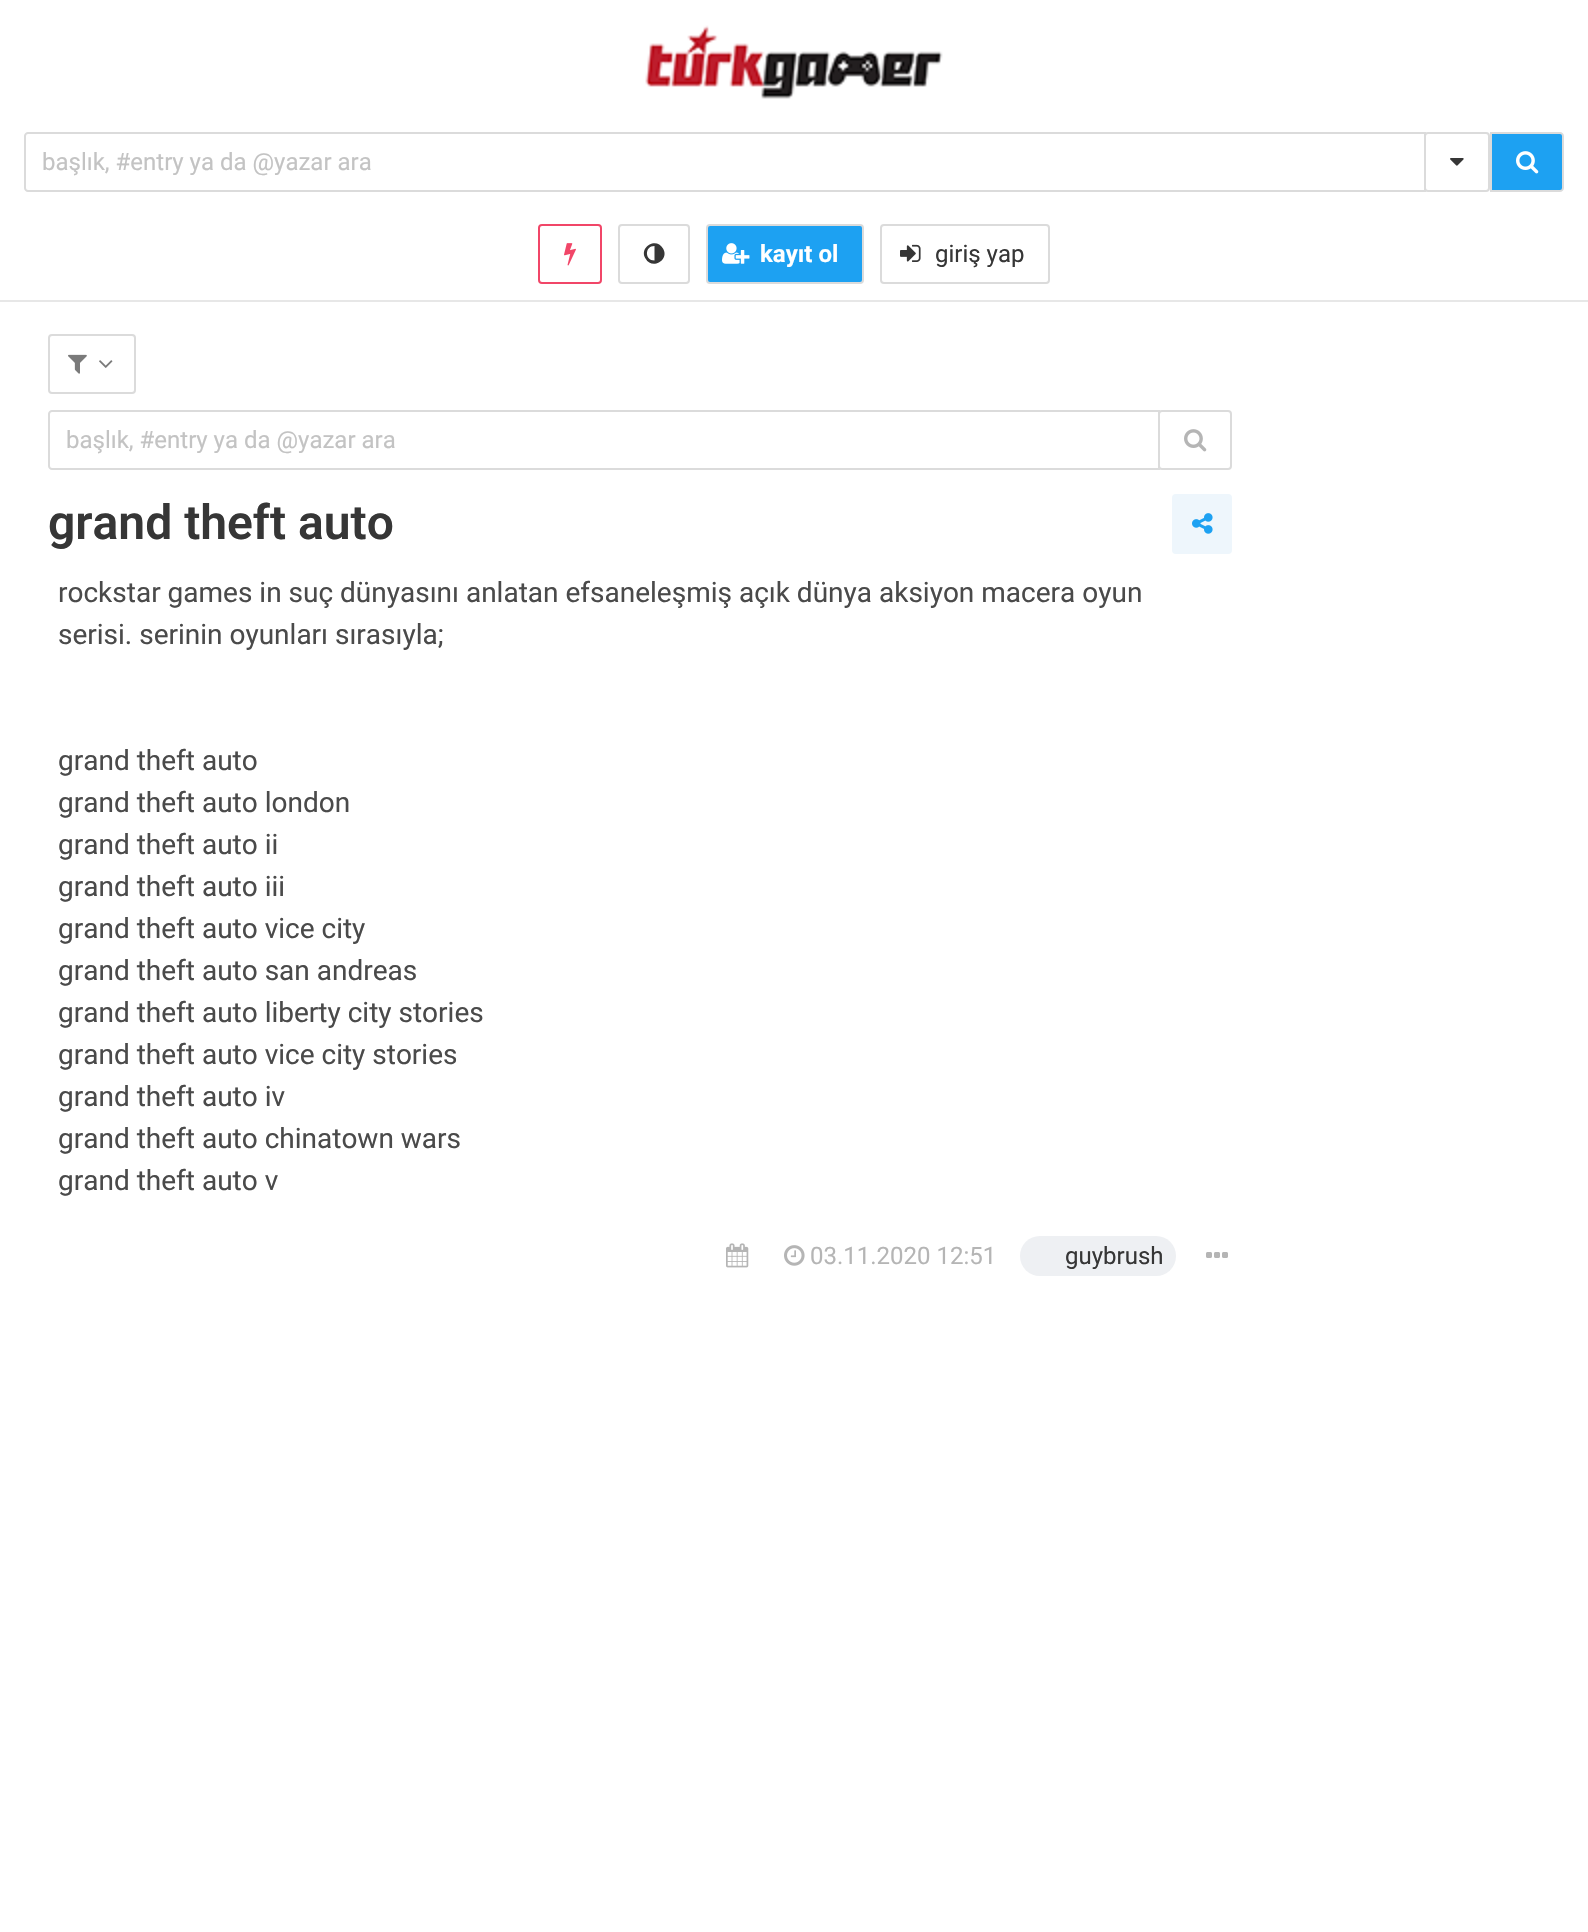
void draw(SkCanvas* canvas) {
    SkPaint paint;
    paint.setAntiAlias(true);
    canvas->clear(0xFFFFFFFF);
    paint.setColor(0xFFE7E7E7);
    canvas->drawRect(SkRect::MakeXYWH(0, 300, 1588, 2), paint);
    canvas->drawImageRect(SkImages::DeferredFromEncodedData(SkData::MakeFromFileName("img1.png")), SkRect::MakeXYWH(645, 25, 298, 74), SkSamplingOptions());
    paint.setStyle(SkPaint::kStroke_Style);
    paint.setStrokeWidth(2);
    paint.setColor(0xFFDBDBDB);
    canvas->drawPath(SkPathBuilder().moveTo(28, 133).lineTo(1425, 133).lineTo(1425, 191).lineTo(28, 191).cubicTo(26.5f, 191, 25, 189.5f, 25, 188).lineTo(25, 136).cubicTo(25, 134.5f, 26.5f, 133, 28, 133).close().detach(), paint);
    SkFont font1(fontMgr->matchFamilyStyle("Roboto", SkFontStyle::Normal()), 24);
    font1.setSubpixel(true);
    paint.setStyle(SkPaint::kFill_Style);
    paint.setColor(0xFFC3C3C3);
    canvas->drawString("başlık, #entry ya da @yazar ara", 42, 170, font1, paint);
    paint.setColor(0xFFFFFFFF);
    canvas->drawRoundRect(SkRect::MakeXYWH(1425, 133, 64, 58), 3, 3, paint);
    paint.setStyle(SkPaint::kStroke_Style);
    paint.setColor(0xFFDBDBDB);
    canvas->drawRoundRect(SkRect::MakeXYWH(1425, 133, 64, 58), 3, 3, paint);
    canvas->drawImageRect(SkImages::DeferredFromEncodedData(SkData::MakeFromFileName("img2.png")), SkRect::MakeXYWH(1450, 158, 14, 8), SkSamplingOptions());
    paint.setStyle(SkPaint::kFill_Style);
    paint.setColor(0xFF1DA1F2);
    canvas->drawPath(SkPathBuilder().moveTo(1491, 133).lineTo(1560, 133).cubicTo(1561.5f, 133, 1563, 134.5f, 1563, 136).lineTo(1563, 188).cubicTo(1563, 189.5f, 1561.5f, 191, 1560, 191).lineTo(1491, 191).close().detach(), paint);
    paint.setStyle(SkPaint::kStroke_Style);
    paint.setColor(0xFFDBDBDB);
    canvas->drawPath(SkPathBuilder().moveTo(1491, 133).lineTo(1560, 133).cubicTo(1561.5f, 133, 1563, 134.5f, 1563, 136).lineTo(1563, 188).cubicTo(1563, 189.5f, 1561.5f, 191, 1560, 191).lineTo(1491, 191).close().detach(), paint);
    canvas->drawImageRect(SkImages::DeferredFromEncodedData(SkData::MakeFromFileName("img3.png")), SkRect::MakeXYWH(1516, 151, 23, 23), SkSamplingOptions());
    paint.setColor(0xFFF14668);
    canvas->drawRoundRect(SkRect::MakeXYWH(539, 225, 62, 58), 3, 3, paint);
    canvas->drawImageRect(SkImages::DeferredFromEncodedData(SkData::MakeFromFileName("img4.png")), SkRect::MakeXYWH(564, 243, 12, 23), SkSamplingOptions());
    paint.setColor(0xFFDBDBDB);
    canvas->drawRoundRect(SkRect::MakeXYWH(619, 225, 70, 58), 3, 3, paint);
    paint.setStyle(SkPaint::kFill_Style);
    paint.setColor(0xFF363636);
    canvas->drawPath(SkPathBuilder().moveTo(654.5f, 260.5f).lineTo(654.5f, 246).cubicTo(644.5f, 246, 644.5f, 260.5f, 654.5f, 260.5f).close().moveTo(663, 248.5f).cubicTo(670, 260, 652, 270.5f, 645.5f, 258.5f).cubicTo(638.5f, 247, 656.5f, 236.5f, 663, 248.5f).close().detach(), paint);
    paint.setColor(0xFF1DA1F2);
    canvas->drawRoundRect(SkRect::MakeXYWH(707, 225, 156, 58), 3, 3, paint);
    paint.setStyle(SkPaint::kStroke_Style);
    paint.setColor(0xFFDBDBDB);
    canvas->drawRoundRect(SkRect::MakeXYWH(707, 225, 156, 58), 3, 3, paint);
    canvas->drawImageRect(SkImages::DeferredFromEncodedData(SkData::MakeFromFileName("img5.png")), SkRect::MakeXYWH(722, 243, 28, 21), SkSamplingOptions());
    SkFont font2(fontMgr->matchFamilyStyle("Roboto", SkFontStyle::Bold()), 24);
    font2.setSubpixel(true);
    paint.setStyle(SkPaint::kFill_Style);
    paint.setColor(0xFFFFFFFF);
    canvas->drawString("kayıt ol", 760, 262, font2, paint);
    paint.setStyle(SkPaint::kStroke_Style);
    paint.setColor(0xFFDBDBDB);
    canvas->drawRoundRect(SkRect::MakeXYWH(881, 225, 168, 58), 3, 3, paint);
    canvas->drawImageRect(SkImages::DeferredFromEncodedData(SkData::MakeFromFileName("img6.png")), SkRect::MakeXYWH(900, 244, 21, 18), SkSamplingOptions());
    paint.setStyle(SkPaint::kFill_Style);
    paint.setColor(0xFF363636);
    canvas->drawString("giriş yap", 935, 262, font1, paint);
    paint.setStyle(SkPaint::kStroke_Style);
    paint.setColor(0xFFDBDBDB);
    canvas->drawRoundRect(SkRect::MakeXYWH(49, 335, 86, 58), 3, 3, paint);
    canvas->drawImageRect(SkImages::DeferredFromEncodedData(SkData::MakeFromFileName("img7.png")), SkRect::MakeXYWH(68, 354, 19, 20), SkSamplingOptions());
    canvas->drawImageRect(SkImages::DeferredFromEncodedData(SkData::MakeFromFileName("img8.png")), SkRect::MakeXYWH(99, 360, 14, 8), SkSamplingOptions());
    canvas->drawPath(SkPathBuilder().moveTo(52, 411).lineTo(1159, 411).lineTo(1159, 469).lineTo(52, 469).cubicTo(50.5f, 469, 49, 467.5f, 49, 466).lineTo(49, 414).cubicTo(49, 412.5f, 50.5f, 411, 52, 411).close().detach(), paint);
    paint.setStyle(SkPaint::kFill_Style);
    paint.setColor(0xFFC3C3C3);
    canvas->drawString("başlık, #entry ya da @yazar ara", 66, 448, font1, paint);
    paint.setColor(0xFFFFFFFF);
    canvas->drawRoundRect(SkRect::MakeXYWH(1159, 411, 72, 58), 3, 3, paint);
    paint.setStyle(SkPaint::kStroke_Style);
    paint.setColor(0xFFDBDBDB);
    canvas->drawRoundRect(SkRect::MakeXYWH(1159, 411, 72, 58), 3, 3, paint);
    canvas->drawImageRect(SkImages::DeferredFromEncodedData(SkData::MakeFromFileName("img9.png")), SkRect::MakeXYWH(1184, 429, 23, 23), SkSamplingOptions());
    SkFont font3(fontMgr->matchFamilyStyle("Roboto", SkFontStyle(600, SkFontStyle::kNormal_Width, SkFontStyle::kUpright_Slant)), 48);
    font3.setSubpixel(true);
    paint.setStyle(SkPaint::kFill_Style);
    paint.setColor(0xFF363636);
    canvas->drawString("grand theft auto", 48, 539, font3, paint);
    paint.setColor(0xFFEEF6FC);
    canvas->drawRoundRect(SkRect::MakeXYWH(1172, 494, 60, 60), 4, 4, paint);
    canvas->drawImageRect(SkImages::DeferredFromEncodedData(SkData::MakeFromFileName("img10.png")), SkRect::MakeXYWH(1192, 513, 21, 21), SkSamplingOptions());
    SkFont font4(fontMgr->matchFamilyStyle("Roboto", SkFontStyle::Normal()), 28);
    font4.setSubpixel(true);
    paint.setColor(0xFF4A4A4A);
    canvas->drawString("rockstar games in suç dünyasını anlatan efsaneleşmiş açık dünya aksiyon macera oyun", 58, 602, font4, paint);
    canvas->drawString("serisi. serinin oyunları sırasıyla;", 58, 644, font4, paint);
    canvas->drawString("grand theft auto", 58, 770, font4, paint);
    canvas->drawString("grand theft auto london", 58, 812, font4, paint);
    canvas->drawString("grand theft auto ii", 58, 854, font4, paint);
    canvas->drawString("grand theft auto iii", 58, 896, font4, paint);
    canvas->drawString("grand theft auto vice city", 58, 938, font4, paint);
    canvas->drawString("grand theft auto san andreas", 58, 980, font4, paint);
    canvas->drawString("grand theft auto liberty city stories", 58, 1022, font4, paint);
    canvas->drawString("grand theft auto vice city stories", 58, 1064, font4, paint);
    canvas->drawString("grand theft auto iv", 58, 1106, font4, paint);
    canvas->drawString("grand theft auto chinatown wars", 58, 1148, font4, paint);
    canvas->drawString("grand theft auto v", 58, 1190, font4, paint);
    canvas->drawImageRect(SkImages::DeferredFromEncodedData(SkData::MakeFromFileName("img11.png")), SkRect::MakeXYWH(726, 1243, 23, 25), SkSamplingOptions());
    canvas->drawImageRect(SkImages::DeferredFromEncodedData(SkData::MakeFromFileName("img12.png")), SkRect::MakeXYWH(784, 1245, 21, 21), SkSamplingOptions());
    paint.setColor(0xFFB5B5B5);
    canvas->drawString("03.11.2020 12:51", 810, 1264, font1, paint);
    paint.setColor(0xFFEEF0F3);
    canvas->drawRoundRect(SkRect::MakeXYWH(1020, 1236, 156, 40), 20, 20, paint);
    paint.setColor(0xFF363636);
    canvas->drawString("guybrush", 1065, 1264, font1, paint);
    canvas->drawImageRect(SkImages::DeferredFromEncodedData(SkData::MakeFromFileName("img13.png")), SkRect::MakeXYWH(1206, 1252, 22, 6), SkSamplingOptions());
}
